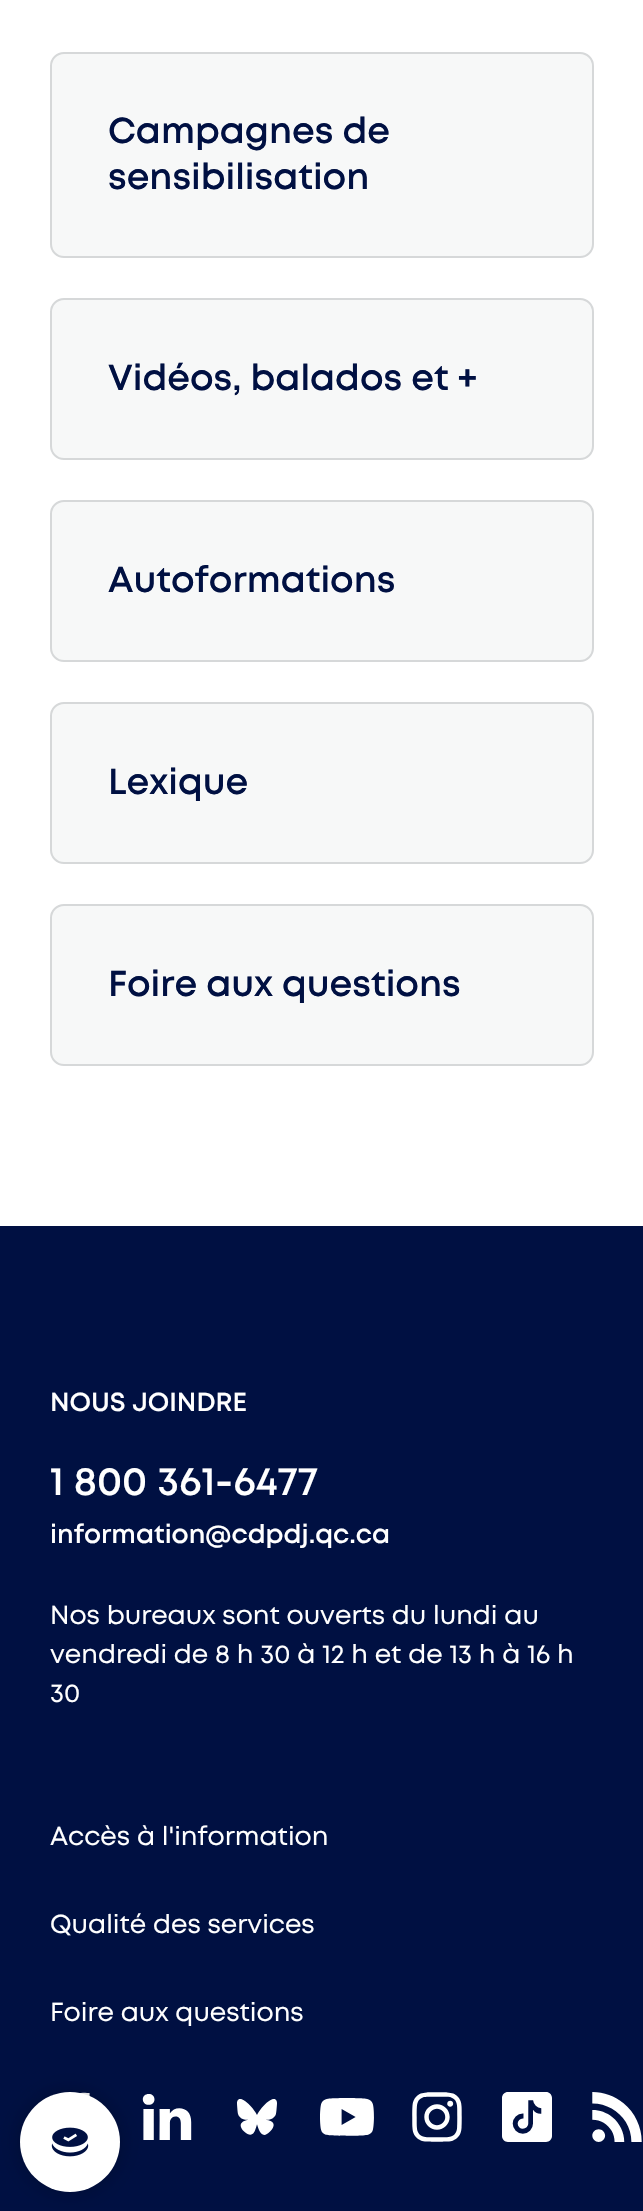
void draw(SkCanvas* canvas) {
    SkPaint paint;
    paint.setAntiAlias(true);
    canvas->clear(0xFFFFFFFF);
    paint.setColor(0xFFF7F8F8);
    canvas->drawRoundRect(SkRect::MakeXYWH(51, 53, 542, 204), 13, 13, paint);
    paint.setStyle(SkPaint::kStroke_Style);
    paint.setStrokeWidth(2);
    paint.setColor(0xFFD6D8D9);
    canvas->drawRoundRect(SkRect::MakeXYWH(51, 53, 542, 204), 13, 13, paint);
    SkFont font1(fontMgr->matchFamilyStyle("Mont", SkFontStyle(600, SkFontStyle::kNormal_Width, SkFontStyle::kUpright_Slant)), 36);
    font1.setSubpixel(true);
    paint.setStyle(SkPaint::kFill_Style);
    paint.setColor(0xFF001042);
    canvas->drawString("Campagnes de", 108, 143, font1, paint);
    canvas->drawString("sensibilisation", 108, 189, font1, paint);
    paint.setColor(0xFFF7F8F8);
    canvas->drawRoundRect(SkRect::MakeXYWH(51, 299, 542, 160), 13, 13, paint);
    paint.setStyle(SkPaint::kStroke_Style);
    paint.setColor(0xFFD6D8D9);
    canvas->drawRoundRect(SkRect::MakeXYWH(51, 299, 542, 160), 13, 13, paint);
    paint.setStyle(SkPaint::kFill_Style);
    paint.setColor(0xFF001042);
    canvas->drawString("Vidéos, balados et +", 108, 390, font1, paint);
    paint.setColor(0xFFF7F8F8);
    canvas->drawRoundRect(SkRect::MakeXYWH(51, 501, 542, 160), 13, 13, paint);
    paint.setStyle(SkPaint::kStroke_Style);
    paint.setColor(0xFFD6D8D9);
    canvas->drawRoundRect(SkRect::MakeXYWH(51, 501, 542, 160), 13, 13, paint);
    paint.setStyle(SkPaint::kFill_Style);
    paint.setColor(0xFF001042);
    canvas->drawString("Autoformations", 108, 592, font1, paint);
    paint.setColor(0xFFF7F8F8);
    canvas->drawRoundRect(SkRect::MakeXYWH(51, 703, 542, 160), 13, 13, paint);
    paint.setStyle(SkPaint::kStroke_Style);
    paint.setColor(0xFFD6D8D9);
    canvas->drawRoundRect(SkRect::MakeXYWH(51, 703, 542, 160), 13, 13, paint);
    paint.setStyle(SkPaint::kFill_Style);
    paint.setColor(0xFF001042);
    canvas->drawString("Lexique", 108, 794, font1, paint);
    paint.setColor(0xFFF7F8F8);
    canvas->drawRoundRect(SkRect::MakeXYWH(51, 905, 542, 160), 13, 13, paint);
    paint.setStyle(SkPaint::kStroke_Style);
    paint.setColor(0xFFD6D8D9);
    canvas->drawRoundRect(SkRect::MakeXYWH(51, 905, 542, 160), 13, 13, paint);
    paint.setStyle(SkPaint::kFill_Style);
    paint.setColor(0xFF001042);
    canvas->drawString("Foire aux questions", 108, 996, font1, paint);
    canvas->drawRect(SkRect::MakeXYWH(0, 1226, 643, 985), paint);
    SkFont font2(fontMgr->matchFamilyStyle("Mont", SkFontStyle(600, SkFontStyle::kNormal_Width, SkFontStyle::kUpright_Slant)), 26);
    font2.setSubpixel(true);
    paint.setColor(0xFFFFFFFF);
    canvas->drawString("NOUS JOINDRE", 50, 1411, font2, paint);
    SkFont font3(fontMgr->matchFamilyStyle("Mont", SkFontStyle(600, SkFontStyle::kNormal_Width, SkFontStyle::kUpright_Slant)), 40);
    font3.setSubpixel(true);
    canvas->drawString("1 800 361-6477", 50, 1495, font3, paint);
    canvas->drawString("information@cdpdj.qc.ca", 50, 1543, font2, paint);
    SkFont font4(fontMgr->matchFamilyStyle("Mont", SkFontStyle::Normal()), 26);
    font4.setSubpixel(true);
    canvas->drawString("Nos bureaux sont ouverts du lundi au", 50, 1624, font4, paint);
    canvas->drawString("vendredi de 8 h 30 à 12 h et de 13 h à 16 h", 50, 1663, font4, paint);
    canvas->drawString("30", 50, 1702, font4, paint);
    canvas->drawString("Accès à l'information", 50, 1845, font4, paint);
    canvas->drawString("Qualité des services", 50, 1933, font4, paint);
    canvas->drawString("Foire aux questions", 50, 2021, font4, paint);
    canvas->drawImageRect(SkImages::DeferredFromEncodedData(SkData::MakeFromFileName("img1.png")), SkRect::MakeXYWH(80, 2092, 10, 5), SkSamplingOptions());
    canvas->drawImageRect(SkImages::DeferredFromEncodedData(SkData::MakeFromFileName("img2.png")), SkRect::MakeXYWH(142, 2094, 50, 46), SkSamplingOptions());
    canvas->drawImageRect(SkImages::DeferredFromEncodedData(SkData::MakeFromFileName("img3.png")), SkRect::MakeXYWH(237, 2099, 40, 36), SkSamplingOptions());
    canvas->drawImageRect(SkImages::DeferredFromEncodedData(SkData::MakeFromFileName("img4.png")), SkRect::MakeXYWH(320, 2098, 54, 38), SkSamplingOptions());
    canvas->drawImageRect(SkImages::DeferredFromEncodedData(SkData::MakeFromFileName("img5.png")), SkRect::MakeXYWH(412, 2092, 50, 50), SkSamplingOptions());
    canvas->drawImageRect(SkImages::DeferredFromEncodedData(SkData::MakeFromFileName("img6.png")), SkRect::MakeXYWH(502, 2092, 50, 50), SkSamplingOptions());
    canvas->drawImageRect(SkImages::DeferredFromEncodedData(SkData::MakeFromFileName("img7.png")), SkRect::MakeXYWH(592, 2092, 50, 50), SkSamplingOptions());
    paint.setColor(0x40000000);
    paint.setMaskFilter(SkMaskFilter::MakeBlur(kNormal_SkBlurStyle, 10));
    canvas->drawRoundRect(SkRect::MakeXYWH(20, 2092, 100, 100), 50, 50, paint);
    paint.setMaskFilter(nullptr);
    paint.setColor(0xFFFFFFFF);
    canvas->drawCircle(70, 2142, 50, paint);
    canvas->drawImageRect(SkImages::DeferredFromEncodedData(SkData::MakeFromFileName("img8.png")), SkRect::MakeXYWH(51, 2127, 38, 30), SkSamplingOptions());
}
